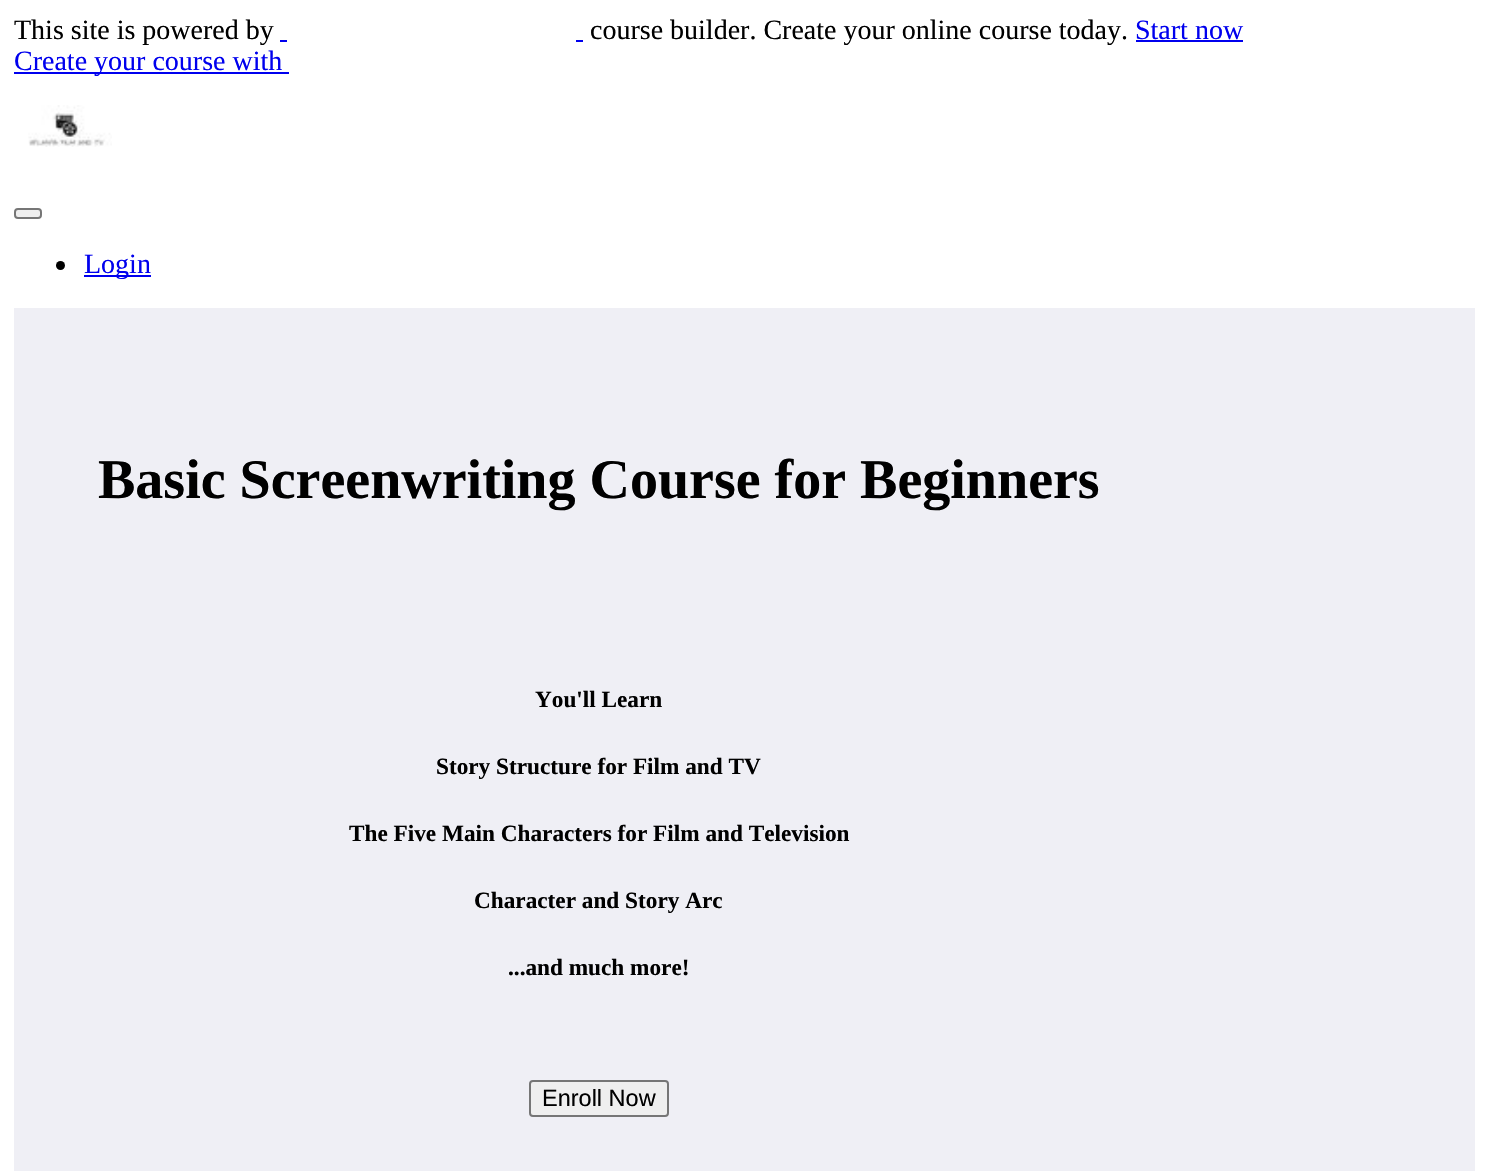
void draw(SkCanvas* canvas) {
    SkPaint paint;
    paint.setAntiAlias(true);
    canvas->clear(0xFFFFFFFF);
    SkFont font1(fontMgr->matchFamilyStyle("Liberation Serif", SkFontStyle::Normal()), 28);
    font1.setSubpixel(true);
    paint.setColor(0xFF000000);
    canvas->drawString("This site is powered by", 14, 39, font1, paint);
    canvas->drawString("course builder. Create your online course today.", 590, 39, font1, paint);
    paint.setColor(0xFF0000EE);
    canvas->drawString("Start now", 1135, 39, font1, paint);
    canvas->drawRect(SkRect::MakeXYWH(1136, 40, 107, 2), paint);
    canvas->drawRect(SkRect::MakeXYWH(280, 40, 7, 2), paint);
    canvas->drawRect(SkRect::MakeXYWH(576, 40, 7, 2), paint);
    canvas->drawRect(SkRect::MakeXYWH(14, 72, 275, 2), paint);
    canvas->drawString("Create your course with", 14, 70, font1, paint);
    canvas->drawImageRect(SkImages::DeferredFromEncodedData(SkData::MakeFromFileName("img1.png")), SkRect::MakeXYWH(28, 105, 84, 42), SkSamplingOptions());
    paint.setColor(0xFFEFEFEF);
    canvas->drawRoundRect(SkRect::MakeXYWH(15, 209, 26, 9), 3, 3, paint);
    paint.setStyle(SkPaint::kStroke_Style);
    paint.setStrokeWidth(2);
    paint.setColor(0xFF767676);
    canvas->drawRoundRect(SkRect::MakeXYWH(15, 209, 26, 9), 3, 3, paint);
    paint.setStyle(SkPaint::kFill_Style);
    paint.setColor(0xFF000000);
    canvas->drawCircle(60.5f, 265.5f, 4.5f, paint);
    paint.setColor(0xFF0000EE);
    canvas->drawRect(SkRect::MakeXYWH(84, 275, 67, 2), paint);
    canvas->drawString("Login", 84, 273, font1, paint);
    paint.setColor(0xFFEFEFF5);
    canvas->drawRect(SkRect::MakeXYWH(14, 308, 1461, 863), paint);
    SkFont font2(fontMgr->matchFamilyStyle("Liberation Serif", SkFontStyle::Bold()), 56);
    font2.setSubpixel(true);
    paint.setColor(0xFF000000);
    canvas->drawString("Basic Screenwriting Course for Beginners", 98, 498, font2, paint);
    SkFont font3(fontMgr->matchFamilyStyle("Liberation Serif", SkFontStyle::Bold()), 23.25f);
    font3.setSubpixel(true);
    canvas->drawString("You'll Learn", 535, 707, font3, paint);
    canvas->drawString("Story Structure for Film and TV", 436, 774, font3, paint);
    canvas->drawString("The Five Main Characters for Film and Television", 349, 841, font3, paint);
    canvas->drawString("Character and Story Arc", 474, 908, font3, paint);
    canvas->drawString("...and much more!", 508, 975, font3, paint);
    paint.setColor(0xFFEFEFEF);
    canvas->drawRoundRect(SkRect::MakeXYWH(530, 1081, 138, 35), 3, 3, paint);
    paint.setStyle(SkPaint::kStroke_Style);
    paint.setColor(0xFF767676);
    canvas->drawRoundRect(SkRect::MakeXYWH(530, 1081, 138, 35), 3, 3, paint);
    SkFont font4(fontMgr->matchFamilyStyle("Liberation Sans", SkFontStyle::Normal()), 23.5f);
    font4.setSubpixel(true);
    paint.setStyle(SkPaint::kFill_Style);
    paint.setColor(0xFF000000);
    canvas->drawString("Enroll Now", 542, 1106, font4, paint);
}
